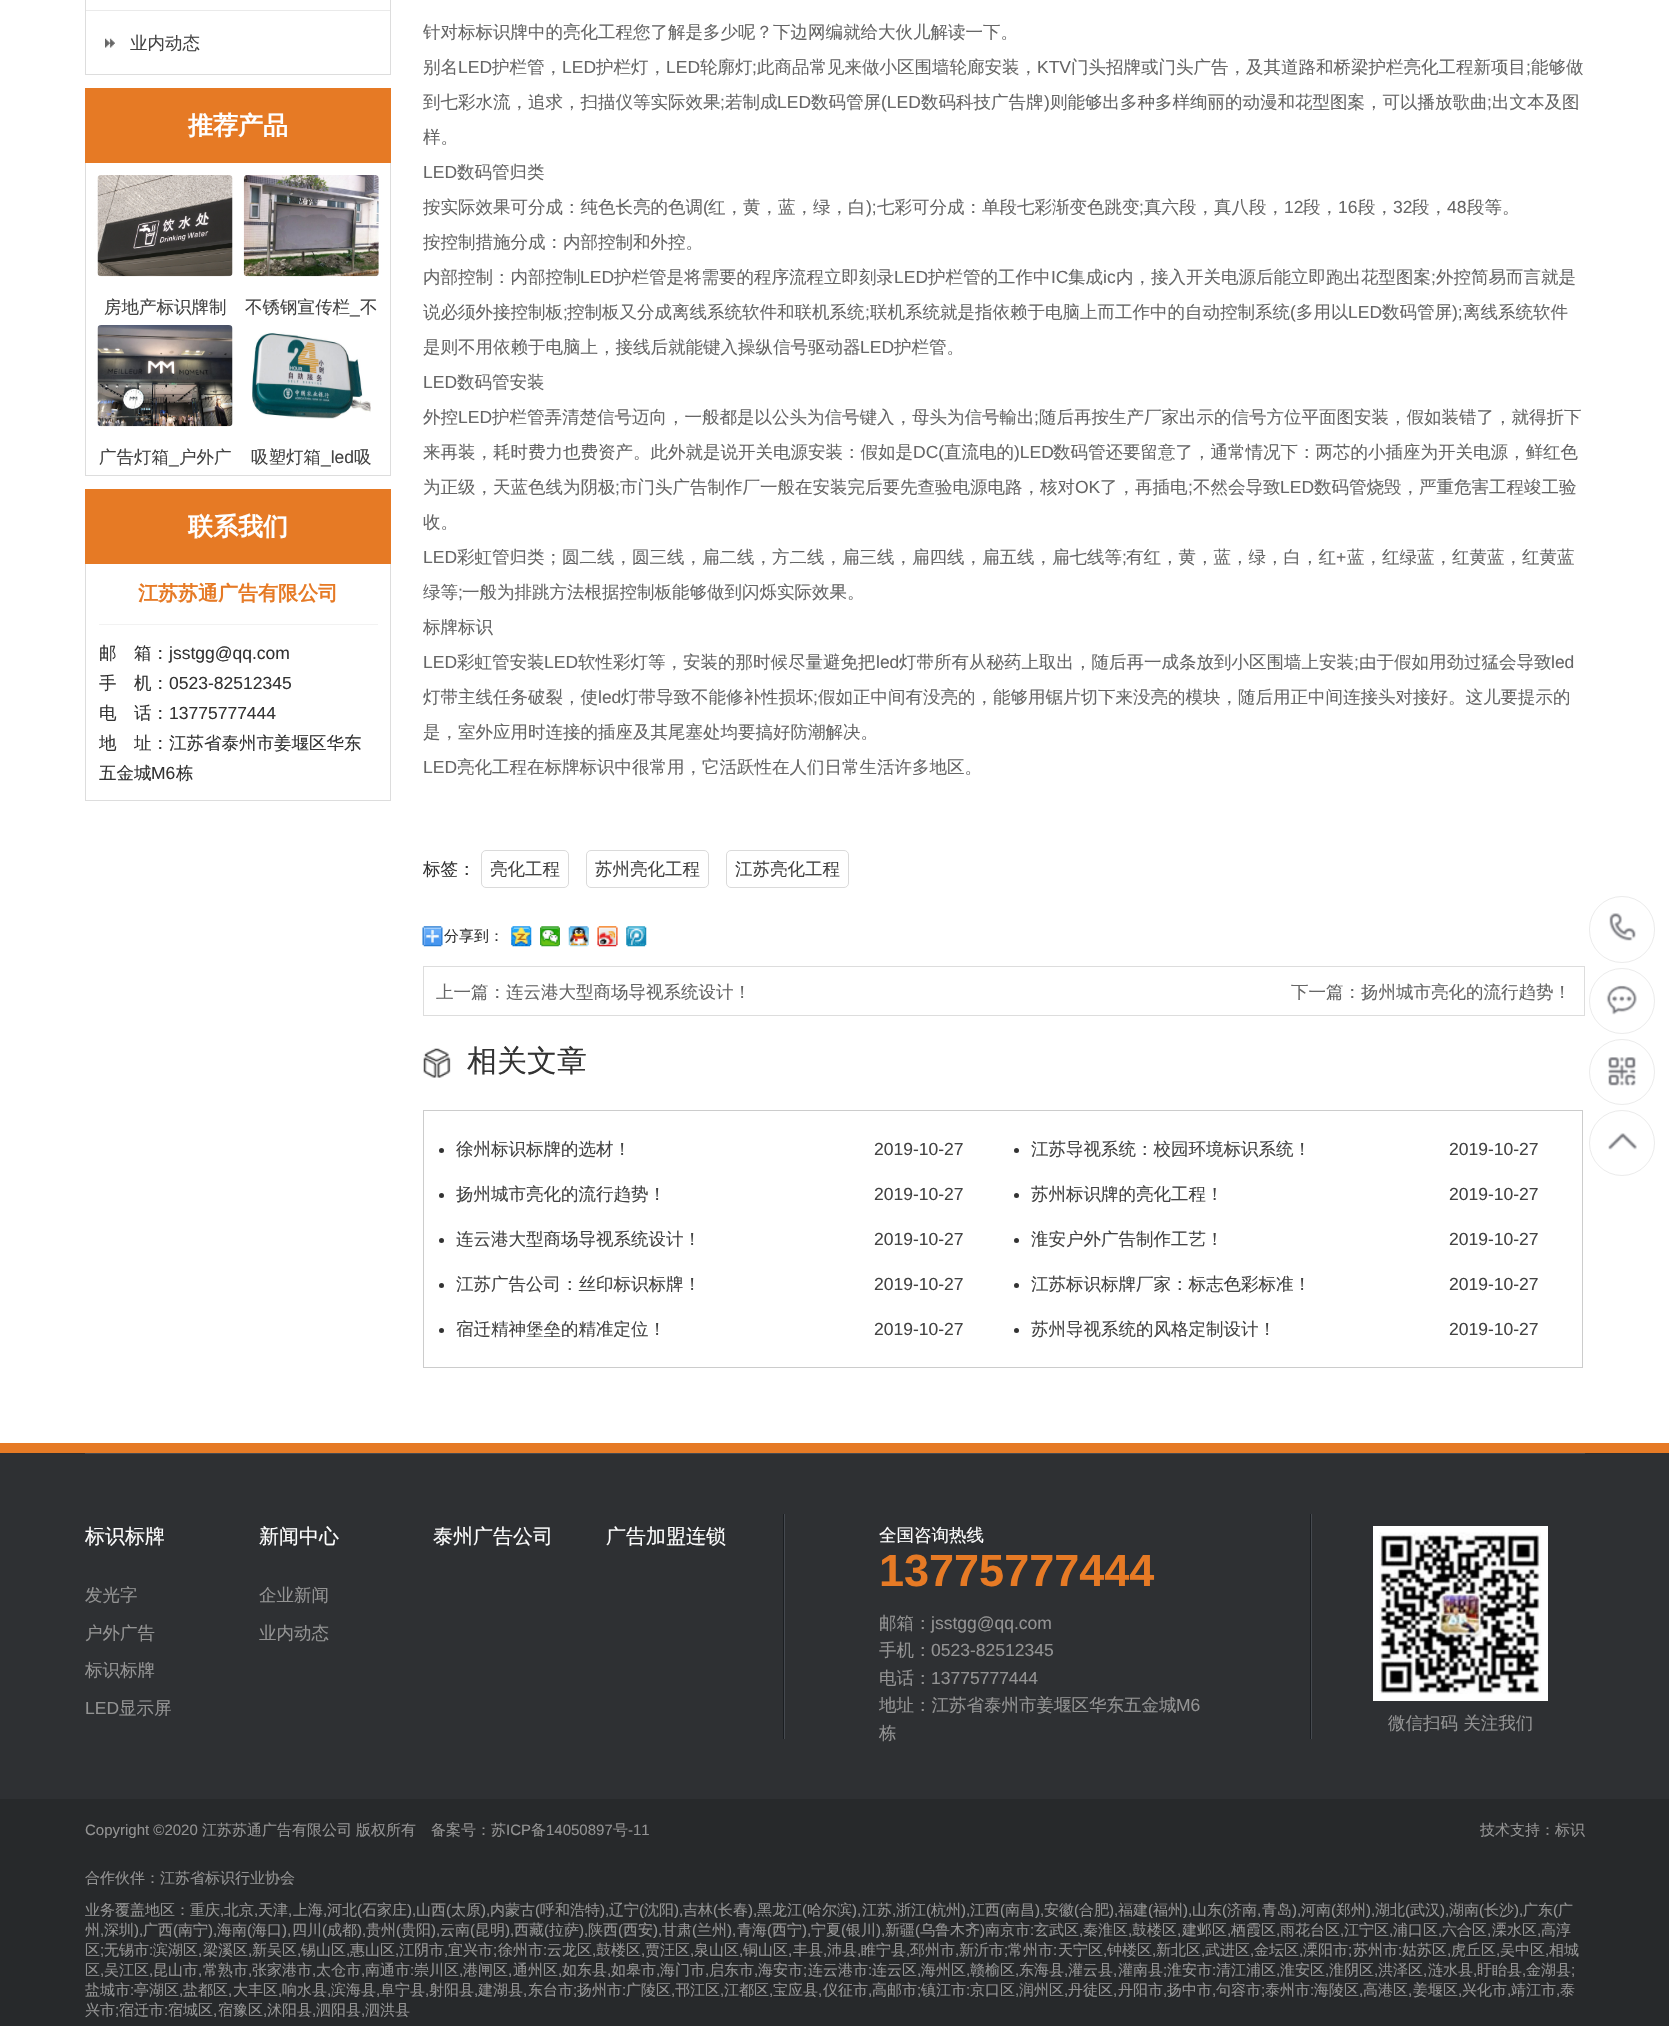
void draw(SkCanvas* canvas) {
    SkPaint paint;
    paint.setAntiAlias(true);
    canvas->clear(0xFFFFFFFF);
    paint.setColor(0xFFDDDDDD);
    canvas->drawRect(SkRect::MakeXYWH(390, 0, 1, 75), paint);
    canvas->drawRect(SkRect::MakeXYWH(85, 74, 306, 1), paint);
    canvas->drawRect(SkRect::MakeXYWH(85, 0, 1, 75), paint);
    canvas->drawImageRect(SkImages::DeferredFromEncodedData(SkData::MakeFromFileName("img1.png")), SkRect::MakeXYWH(105, 38, 10, 10), SkSamplingOptions());
    paint.setColor(0xFFEAEAEA);
    canvas->drawRect(SkRect::MakeXYWH(86, 10, 304, 1), paint);
    SkFont font1(fontMgr->matchFamilyStyle("WenQuanYi Zen Hei", SkFontStyle(500, SkFontStyle::kNormal_Width, SkFontStyle::kUpright_Slant)), 17.5f);
    font1.setSubpixel(true);
    paint.setColor(0xFF434343);
    canvas->drawString("业内动态", 130, 49, font1, paint);
    paint.setColor(0xFFE67A25);
    canvas->drawRect(SkRect::MakeXYWH(85, 88, 306, 75), paint);
    SkFont font2(fontMgr->matchFamilyStyle("WenQuanYi Zen Hei", SkFontStyle::Bold()), 25);
    font2.setSubpixel(true);
    paint.setColor(0xFFFFFFFF);
    canvas->drawString("推荐产品", 188, 134, font2, paint);
    paint.setColor(0xFFDDDDDD);
    canvas->drawRect(SkRect::MakeXYWH(390, 163, 1, 313), paint);
    canvas->drawRect(SkRect::MakeXYWH(85, 475, 306, 1), paint);
    canvas->drawRect(SkRect::MakeXYWH(85, 163, 1, 313), paint);
    canvas->drawImageRect(SkImages::DeferredFromEncodedData(SkData::MakeFromFileName("img2.png")), SkRect::MakeXYWH(97, 175, 136, 102), SkSamplingOptions());
    paint.setColor(0xFF434343);
    canvas->drawString("房地产标识牌制", 104, 313, font1, paint);
    canvas->drawImageRect(SkImages::DeferredFromEncodedData(SkData::MakeFromFileName("img3.png")), SkRect::MakeXYWH(243, 175, 136, 102), SkSamplingOptions());
    canvas->drawString("不锈钢宣传栏", 245, 313, font1, paint);
    canvas->drawString("不", 360, 313, font1, paint);
    SkFont font3(fontMgr->matchFamilyStyle("Liberation Sans", SkFontStyle::Normal()), 17.5f);
    font3.setSubpixel(true);
    canvas->drawString("_", 350, 313, font3, paint);
    canvas->drawImageRect(SkImages::DeferredFromEncodedData(SkData::MakeFromFileName("img4.png")), SkRect::MakeXYWH(97, 325, 136, 102), SkSamplingOptions());
    canvas->drawString("广告灯箱", 99, 463, font1, paint);
    canvas->drawString("_", 169, 463, font3, paint);
    canvas->drawString("户外广", 179, 463, font1, paint);
    canvas->drawImageRect(SkImages::DeferredFromEncodedData(SkData::MakeFromFileName("img5.png")), SkRect::MakeXYWH(252, 332, 119, 87), SkSamplingOptions());
    canvas->drawString("吸塑灯箱", 251, 463, font1, paint);
    canvas->drawString("_led", 321, 463, font3, paint);
    canvas->drawString("吸", 354, 463, font1, paint);
    paint.setColor(0xFFE67A25);
    canvas->drawRect(SkRect::MakeXYWH(85, 489, 306, 75), paint);
    paint.setColor(0xFFFFFFFF);
    canvas->drawString("联系我们", 188, 535, font2, paint);
    paint.setColor(0xFFDDDDDD);
    canvas->drawRect(SkRect::MakeXYWH(390, 564, 1, 237), paint);
    canvas->drawRect(SkRect::MakeXYWH(85, 800, 306, 1), paint);
    canvas->drawRect(SkRect::MakeXYWH(85, 564, 1, 237), paint);
    paint.setColor(0xFFF2F2F2);
    canvas->drawRect(SkRect::MakeXYWH(99, 624, 279, 1), paint);
    SkFont font4(fontMgr->matchFamilyStyle("WenQuanYi Zen Hei", SkFontStyle::Bold()), 20);
    font4.setSubpixel(true);
    paint.setColor(0xFFE67A25);
    canvas->drawString("江苏苏通广告有限公司", 138, 600, font4, paint);
    paint.setColor(0xFF333333);
    canvas->drawString("邮　箱：", 99, 659, font1, paint);
    canvas->drawString("jsstgg@qq.com", 169, 659, font3, paint);
    canvas->drawString("手　机：", 99, 689, font1, paint);
    canvas->drawString("0523-82512345", 169, 689, font3, paint);
    canvas->drawString("电　话：", 99, 719, font1, paint);
    canvas->drawString("13775777444", 169, 719, font3, paint);
    canvas->drawString("地　址：江苏省泰州市姜堰区华东", 99, 749, font1, paint);
    canvas->drawString("五金城", 99, 779, font1, paint);
    canvas->drawString("M6", 151, 779, font3, paint);
    canvas->drawString("栋", 176, 779, font1, paint);
    paint.setColor(0xFF666666);
    canvas->drawString("针对标标识牌中的亮化工程您了解是多少呢？下边网编就给大伙儿解读一下。", 423, 38, font1, paint);
    canvas->drawString("别名", 423, 73, font1, paint);
    canvas->drawString("LED", 458, 73, font3, paint);
    canvas->drawString("护栏管，", 492, 73, font1, paint);
    canvas->drawString("LED", 562, 73, font3, paint);
    canvas->drawString("护栏灯，", 596, 73, font1, paint);
    canvas->drawString("LED", 666, 73, font3, paint);
    canvas->drawString("轮廓灯", 700, 73, font1, paint);
    canvas->drawString(";", 752, 73, font3, paint);
    canvas->drawString("此商品常见来做小区围墙轮廊安装，", 757, 73, font1, paint);
    canvas->drawString("KTV", 1037, 73, font3, paint);
    canvas->drawString("门头招牌或门头广告，及其道路和桥梁护栏亮化工程新项目", 1071, 73, font1, paint);
    canvas->drawString(";", 1526, 73, font3, paint);
    canvas->drawString("能够做", 1531, 73, font1, paint);
    canvas->drawString("到七彩水流，追求，扫描仪等实际效果", 423, 108, font1, paint);
    canvas->drawString(";", 720, 108, font3, paint);
    canvas->drawString("若制成", 725, 108, font1, paint);
    canvas->drawString("LED", 777, 108, font3, paint);
    canvas->drawString("数码管屏", 811, 108, font1, paint);
    canvas->drawString("(LED", 881, 108, font3, paint);
    canvas->drawString("数码科技广告牌", 921, 108, font1, paint);
    canvas->drawString(")", 1044, 108, font3, paint);
    canvas->drawString("则能够出多种多样绚丽的动漫和花型图案，可以播放歌曲", 1050, 108, font1, paint);
    canvas->drawString(";", 1487, 108, font3, paint);
    canvas->drawString("出文本及图", 1492, 108, font1, paint);
    canvas->drawString("样。", 423, 143, font1, paint);
    canvas->drawString("LED", 423, 178, font3, paint);
    canvas->drawString("数码管归类", 457, 178, font1, paint);
    canvas->drawString("按实际效果可分成：纯色长亮的色调", 423, 213, font1, paint);
    canvas->drawString("(", 703, 213, font3, paint);
    canvas->drawString("红，黄，蓝，绿，白", 708, 213, font1, paint);
    canvas->drawString(");", 866, 213, font3, paint);
    canvas->drawString("七彩可分成：单段七彩渐变色跳变", 877, 213, font1, paint);
    canvas->drawString(";", 1139, 213, font3, paint);
    canvas->drawString("真六段，真八段，", 1144, 213, font1, paint);
    canvas->drawString("12", 1284, 213, font3, paint);
    canvas->drawString("段，", 1303, 213, font1, paint);
    canvas->drawString("16", 1338, 213, font3, paint);
    canvas->drawString("段，", 1358, 213, font1, paint);
    canvas->drawString("32", 1393, 213, font3, paint);
    canvas->drawString("段，", 1412, 213, font1, paint);
    canvas->drawString("48", 1447, 213, font3, paint);
    canvas->drawString("段等。", 1467, 213, font1, paint);
    canvas->drawString("按控制措施分成：内部控制和外控。", 423, 248, font1, paint);
    canvas->drawString("内部控制：内部控制", 423, 283, font1, paint);
    canvas->drawString("LED", 580, 283, font3, paint);
    canvas->drawString("护栏管是将需要的程序流程立即刻录", 614, 283, font1, paint);
    canvas->drawString("LED", 894, 283, font3, paint);
    canvas->drawString("护栏管的工作中", 928, 283, font1, paint);
    canvas->drawString("IC", 1051, 283, font3, paint);
    canvas->drawString("集成", 1068, 283, font1, paint);
    canvas->drawString("ic", 1103, 283, font3, paint);
    canvas->drawString("内，接入开关电源后能立即跑出花型图案", 1116, 283, font1, paint);
    canvas->drawString(";", 1431, 283, font3, paint);
    canvas->drawString("外控简易而言就是", 1436, 283, font1, paint);
    canvas->drawString("说必须外接控制板", 423, 318, font1, paint);
    canvas->drawString(";", 563, 318, font3, paint);
    canvas->drawString("控制板又分成离线系统软件和联机系统", 567, 318, font1, paint);
    canvas->drawString(";", 865, 318, font3, paint);
    canvas->drawString("联机系统就是指依赖于电脑上而工作中的自动控制系统", 870, 318, font1, paint);
    canvas->drawString("(", 1290, 318, font3, paint);
    canvas->drawString("多用以", 1296, 318, font1, paint);
    canvas->drawString("LED", 1348, 318, font3, paint);
    canvas->drawString("数码管屏", 1382, 318, font1, paint);
    canvas->drawString(");", 1452, 318, font3, paint);
    canvas->drawString("离线系统软件", 1463, 318, font1, paint);
    canvas->drawString("是则不用依赖于电脑上，接线后就能键入操纵信号驱动器", 423, 353, font1, paint);
    canvas->drawString("LED", 860, 353, font3, paint);
    canvas->drawString("护栏管。", 894, 353, font1, paint);
    canvas->drawString("LED", 423, 388, font3, paint);
    canvas->drawString("数码管安装", 457, 388, font1, paint);
    canvas->drawString("外控", 423, 423, font1, paint);
    canvas->drawString("LED", 458, 423, font3, paint);
    canvas->drawString("护栏管弄清楚信号迈向，一般都是以公头为信号键入，母头为信号輸出", 492, 423, font1, paint);
    canvas->drawString(";", 1034, 423, font3, paint);
    canvas->drawString("随后再按生产厂家出示的信号方位平面图安装，假如装错了，就得折下", 1039, 423, font1, paint);
    canvas->drawString("来再装，耗时费力也费资产。此外就是说开关电源安装：假如是", 423, 458, font1, paint);
    canvas->drawString("DC(", 913, 458, font3, paint);
    canvas->drawString("直流电的", 944, 458, font1, paint);
    canvas->drawString(")LED", 1014, 458, font3, paint);
    canvas->drawString("数码管还要留意了，通常情况下：两芯的小插座为开关电源，鲜红色", 1053, 458, font1, paint);
    canvas->drawString("为正级，天蓝色线为阴极", 423, 493, font1, paint);
    canvas->drawString(";", 615, 493, font3, paint);
    canvas->drawString("市门头广告制作厂一般在安装完后要先查验电源电路，核对", 620, 493, font1, paint);
    canvas->drawString("OK", 1075, 493, font3, paint);
    canvas->drawString("了，再插电", 1100, 493, font1, paint);
    canvas->drawString(";", 1188, 493, font3, paint);
    canvas->drawString("不然会导致", 1193, 493, font1, paint);
    canvas->drawString("LED", 1280, 493, font3, paint);
    canvas->drawString("数码管烧毁，严重危害工程竣工验", 1314, 493, font1, paint);
    canvas->drawString("收。", 423, 528, font1, paint);
    canvas->drawString("LED", 423, 563, font3, paint);
    canvas->drawString("彩虹管归类；圆二线，圆三线，扁二线，方二线，扁三线，扁四线，扁五线，扁七线等", 457, 563, font1, paint);
    canvas->drawString(";", 1122, 563, font3, paint);
    canvas->drawString("有红，黄，蓝，绿，白，红", 1126, 563, font1, paint);
    canvas->drawString("+", 1336, 563, font3, paint);
    canvas->drawString("蓝，红绿蓝，红黄蓝，红黄蓝", 1347, 563, font1, paint);
    canvas->drawString("绿等", 423, 598, font1, paint);
    canvas->drawString(";", 458, 598, font3, paint);
    canvas->drawString("一般为排跳方法根据控制板能够做到闪烁实际效果。", 462, 598, font1, paint);
    canvas->drawString("标牌标识", 423, 633, font1, paint);
    canvas->drawString("LED", 423, 668, font3, paint);
    canvas->drawString("彩虹管安装", 457, 668, font1, paint);
    canvas->drawString("LED", 544, 668, font3, paint);
    canvas->drawString("软性彩灯等，安装的那时候尽量避免把", 578, 668, font1, paint);
    canvas->drawString("led", 876, 668, font3, paint);
    canvas->drawString("灯带所有从秘药上取出，随后再一成条放到小区围墙上安装", 899, 668, font1, paint);
    canvas->drawString(";", 1354, 668, font3, paint);
    canvas->drawString("由于假如用劲过猛会导致", 1359, 668, font1, paint);
    canvas->drawString("led", 1551, 668, font3, paint);
    canvas->drawString("灯带主线任务破裂，使", 423, 703, font1, paint);
    canvas->drawString("led", 598, 703, font3, paint);
    canvas->drawString("灯带导致不能修补性损坏", 621, 703, font1, paint);
    canvas->drawString(";", 813, 703, font3, paint);
    canvas->drawString("假如正中间有没亮的，能够用锯片切下来没亮的模块，随后用正中间连接头对接好。这儿要提示的", 818, 703, font1, paint);
    canvas->drawString("是，室外应用时连接的插座及其尾塞处均要搞好防潮解决。", 423, 738, font1, paint);
    canvas->drawString("LED", 423, 773, font3, paint);
    canvas->drawString("亮化工程在标牌标识中很常用，它活跃性在人们日常生活许多地区。", 457, 773, font1, paint);
    paint.setColor(0xFF333333);
    canvas->drawString("标签：", 423, 875, font1, paint);
    paint.setStyle(SkPaint::kStroke_Style);
    paint.setStrokeWidth(1);
    paint.setColor(0xFFDADADA);
    canvas->drawRoundRect(SkRect::MakeXYWH(481.5f, 850.5f, 87, 37), 4.5f, 4.5f, paint);
    paint.setStyle(SkPaint::kFill_Style);
    paint.setColor(0xFF434343);
    canvas->drawString("亮化工程", 490, 875, font1, paint);
    paint.setStyle(SkPaint::kStroke_Style);
    paint.setColor(0xFFDADADA);
    canvas->drawRoundRect(SkRect::MakeXYWH(586.5f, 850.5f, 122, 37), 4.5f, 4.5f, paint);
    paint.setStyle(SkPaint::kFill_Style);
    paint.setColor(0xFF434343);
    canvas->drawString("苏州亮化工程", 595, 875, font1, paint);
    paint.setStyle(SkPaint::kStroke_Style);
    paint.setColor(0xFFDADADA);
    canvas->drawRoundRect(SkRect::MakeXYWH(726.5f, 850.5f, 122, 37), 4.5f, 4.5f, paint);
    paint.setStyle(SkPaint::kFill_Style);
    paint.setColor(0xFF434343);
    canvas->drawString("江苏亮化工程", 735, 875, font1, paint);
    canvas->drawImageRect(SkImages::DeferredFromEncodedData(SkData::MakeFromFileName("img6.png")), SkRect::MakeXYWH(422, 926, 21, 21), SkSamplingOptions());
    SkFont font5(fontMgr->matchFamilyStyle("WenQuanYi Zen Hei", SkFontStyle(500, SkFontStyle::kNormal_Width, SkFontStyle::kUpright_Slant)), 15);
    font5.setSubpixel(true);
    paint.setColor(0xFF333333);
    canvas->drawString("分享到：", 444, 941, font5, paint);
    canvas->drawImageRect(SkImages::DeferredFromEncodedData(SkData::MakeFromFileName("img7.png")), SkRect::MakeXYWH(511, 926, 21, 21), SkSamplingOptions());
    canvas->drawImageRect(SkImages::DeferredFromEncodedData(SkData::MakeFromFileName("img8.png")), SkRect::MakeXYWH(540, 926, 20, 21), SkSamplingOptions());
    canvas->drawImageRect(SkImages::DeferredFromEncodedData(SkData::MakeFromFileName("img9.png")), SkRect::MakeXYWH(568, 926, 21, 21), SkSamplingOptions());
    canvas->drawImageRect(SkImages::DeferredFromEncodedData(SkData::MakeFromFileName("img10.png")), SkRect::MakeXYWH(597, 926, 21, 21), SkSamplingOptions());
    canvas->drawImageRect(SkImages::DeferredFromEncodedData(SkData::MakeFromFileName("img11.png")), SkRect::MakeXYWH(626, 926, 21, 21), SkSamplingOptions());
    paint.setStyle(SkPaint::kStroke_Style);
    paint.setColor(0xFFDDDDDD);
    canvas->drawRect(SkRect::MakeXYWH(423.5f, 966.5f, 1161, 49), paint);
    paint.setStyle(SkPaint::kFill_Style);
    paint.setColor(0xFF666666);
    canvas->drawString("上一篇：连云港大型商场导视系统设计！", 436, 998, font1, paint);
    canvas->drawString("下一篇：扬州城市亮化的流行趋势！", 1291, 998, font1, paint);
    canvas->drawImageRect(SkImages::DeferredFromEncodedData(SkData::MakeFromFileName("img12.png")), SkRect::MakeXYWH(423, 1048, 28, 30), SkSamplingOptions());
    SkFont font6(fontMgr->matchFamilyStyle("WenQuanYi Zen Hei", SkFontStyle(500, SkFontStyle::kNormal_Width, SkFontStyle::kUpright_Slant)), 30);
    font6.setSubpixel(true);
    paint.setColor(0xFF333333);
    canvas->drawString("相关文章", 467, 1071, font6, paint);
    paint.setStyle(SkPaint::kStroke_Style);
    paint.setColor(0xFFCCCCCC);
    canvas->drawRect(SkRect::MakeXYWH(423.5f, 1110.5f, 1159, 257), paint);
    paint.setStyle(SkPaint::kFill_Style);
    paint.setColor(0xFF333333);
    canvas->drawCircle(441.5f, 1150.5f, 2.5f, paint);
    paint.setColor(0xFF434343);
    canvas->drawString("徐州标识标牌的选材！", 456, 1155, font1, paint);
    canvas->drawString("2019-10-27", 874, 1155, font3, paint);
    paint.setColor(0xFF333333);
    canvas->drawCircle(1016.5f, 1150.5f, 2.5f, paint);
    paint.setColor(0xFF434343);
    canvas->drawString("江苏导视系统：校园环境标识系统！", 1031, 1155, font1, paint);
    canvas->drawString("2019-10-27", 1449, 1155, font3, paint);
    paint.setColor(0xFF333333);
    canvas->drawCircle(441.5f, 1195.5f, 2.5f, paint);
    paint.setColor(0xFF434343);
    canvas->drawString("扬州城市亮化的流行趋势！", 456, 1200, font1, paint);
    canvas->drawString("2019-10-27", 874, 1200, font3, paint);
    paint.setColor(0xFF333333);
    canvas->drawCircle(1016.5f, 1195.5f, 2.5f, paint);
    paint.setColor(0xFF434343);
    canvas->drawString("苏州标识牌的亮化工程！", 1031, 1200, font1, paint);
    canvas->drawString("2019-10-27", 1449, 1200, font3, paint);
    paint.setColor(0xFF333333);
    canvas->drawCircle(441.5f, 1240.5f, 2.5f, paint);
    paint.setColor(0xFF434343);
    canvas->drawString("连云港大型商场导视系统设计！", 456, 1245, font1, paint);
    canvas->drawString("2019-10-27", 874, 1245, font3, paint);
    paint.setColor(0xFF333333);
    canvas->drawCircle(1016.5f, 1240.5f, 2.5f, paint);
    paint.setColor(0xFF434343);
    canvas->drawString("淮安户外广告制作工艺！", 1031, 1245, font1, paint);
    canvas->drawString("2019-10-27", 1449, 1245, font3, paint);
    paint.setColor(0xFF333333);
    canvas->drawCircle(441.5f, 1285.5f, 2.5f, paint);
    paint.setColor(0xFF434343);
    canvas->drawString("江苏广告公司：丝印标识标牌！", 456, 1290, font1, paint);
    canvas->drawString("2019-10-27", 874, 1290, font3, paint);
    paint.setColor(0xFF333333);
    canvas->drawCircle(1016.5f, 1285.5f, 2.5f, paint);
    paint.setColor(0xFF434343);
    canvas->drawString("江苏标识标牌厂家：标志色彩标准！", 1031, 1290, font1, paint);
    canvas->drawString("2019-10-27", 1449, 1290, font3, paint);
    paint.setColor(0xFF333333);
    canvas->drawCircle(441.5f, 1330.5f, 2.5f, paint);
    paint.setColor(0xFF434343);
    canvas->drawString("宿迁精神堡垒的精准定位！", 456, 1335, font1, paint);
    canvas->drawString("2019-10-27", 874, 1335, font3, paint);
    paint.setColor(0xFF333333);
    canvas->drawCircle(1016.5f, 1330.5f, 2.5f, paint);
    paint.setColor(0xFF434343);
    canvas->drawString("苏州导视系统的风格定制设计！", 1031, 1335, font1, paint);
    canvas->drawString("2019-10-27", 1449, 1335, font3, paint);
    paint.setStyle(SkPaint::kStroke_Style);
    paint.setColor(0xFFEBEBEB);
    canvas->drawRoundRect(SkRect::MakeXYWH(1589.5f, 896.5f, 65, 66), 32.5f, 32.5f, paint);
    canvas->drawImageRect(SkImages::DeferredFromEncodedData(SkData::MakeFromFileName("img13.png")), SkRect::MakeXYWH(1609, 913, 27, 28), SkSamplingOptions());
    canvas->drawCircle(1622, 1001, 32.5f, paint);
    canvas->drawImageRect(SkImages::DeferredFromEncodedData(SkData::MakeFromFileName("img14.png")), SkRect::MakeXYWH(1606, 985, 31, 30), SkSamplingOptions());
    canvas->drawCircle(1622, 1072, 32.5f, paint);
    canvas->drawImageRect(SkImages::DeferredFromEncodedData(SkData::MakeFromFileName("img15.png")), SkRect::MakeXYWH(1608, 1057, 28, 29), SkSamplingOptions());
    canvas->drawCircle(1622, 1143, 32.5f, paint);
    canvas->drawImageRect(SkImages::DeferredFromEncodedData(SkData::MakeFromFileName("img16.png")), SkRect::MakeXYWH(1608, 1133, 29, 17), SkSamplingOptions());
    paint.setStyle(SkPaint::kFill_Style);
    paint.setColor(0xFF2E3033);
    canvas->drawRect(SkRect::MakeXYWH(0, 1453, 1669, 346), paint);
    paint.setColor(0xFFE67A25);
    canvas->drawRect(SkRect::MakeXYWH(0, 1443, 1669, 10), paint);
    paint.setColor(0xFF464A50);
    canvas->drawRect(SkRect::MakeXYWH(85, 1453, 1500, 1), paint);
    paint.setColor(0xFF1A1D21);
    canvas->drawRect(SkRect::MakeXYWH(783, 1514, 1, 225), paint);
    SkFont font7(fontMgr->matchFamilyStyle("WenQuanYi Zen Hei", SkFontStyle(500, SkFontStyle::kNormal_Width, SkFontStyle::kUpright_Slant)), 20);
    font7.setSubpixel(true);
    paint.setColor(0xFFFFFFFF);
    canvas->drawString("标识标牌", 85, 1543, font7, paint);
    paint.setColor(0xFF939393);
    canvas->drawString("发光字", 85, 1601, font1, paint);
    canvas->drawString("户外广告", 85, 1639, font1, paint);
    canvas->drawString("标识标牌", 85, 1676, font1, paint);
    canvas->drawString("LED", 85, 1714, font3, paint);
    canvas->drawString("显示屏", 119, 1714, font1, paint);
    paint.setColor(0xFFFFFFFF);
    canvas->drawString("新闻中心", 259, 1543, font7, paint);
    paint.setColor(0xFF939393);
    canvas->drawString("企业新闻", 259, 1601, font1, paint);
    canvas->drawString("业内动态", 259, 1639, font1, paint);
    paint.setColor(0xFFFFFFFF);
    canvas->drawString("泰州广告公司", 433, 1543, font7, paint);
    canvas->drawString("广告加盟连锁", 606, 1543, font7, paint);
    paint.setColor(0xFF1A1D21);
    canvas->drawRect(SkRect::MakeXYWH(1310, 1514, 1, 225), paint);
    paint.setColor(0xFF464A50);
    canvas->drawRect(SkRect::MakeXYWH(784, 1514, 1, 225), paint);
    paint.setColor(0xFFFFFFFF);
    canvas->drawString("全国咨询热线", 879, 1541, font1, paint);
    SkFont font8(fontMgr->matchFamilyStyle("Liberation Sans", SkFontStyle::Bold()), 45);
    font8.setSubpixel(true);
    paint.setColor(0xFFE67A25);
    canvas->drawString("13775777444", 879, 1586, font8, paint);
    paint.setColor(0xFF939393);
    canvas->drawString("邮箱：", 879, 1629, font1, paint);
    canvas->drawString("jsstgg@qq.com", 931, 1629, font3, paint);
    canvas->drawString("手机：", 879, 1656, font1, paint);
    canvas->drawString("0523-82512345", 931, 1656, font3, paint);
    canvas->drawString("电话：", 879, 1684, font1, paint);
    canvas->drawString("13775777444", 931, 1684, font3, paint);
    canvas->drawString("地址：江苏省泰州市姜堰区华东五金城", 879, 1711, font1, paint);
    canvas->drawString("M6", 1176, 1711, font3, paint);
    canvas->drawString("栋", 879, 1739, font1, paint);
    paint.setColor(0xFF464A50);
    canvas->drawRect(SkRect::MakeXYWH(1311, 1514, 1, 225), paint);
    paint.setColor(0xFFFFFFFF);
    canvas->drawRect(SkRect::MakeXYWH(1373, 1526, 175, 175), paint);
    canvas->drawImageRect(SkImages::DeferredFromEncodedData(SkData::MakeFromFileName("img17.png")), SkRect::MakeXYWH(1379, 1532, 162, 162), SkSamplingOptions());
    paint.setColor(0xFF939393);
    canvas->drawString("微信扫码 关注我们", 1388, 1729, font1, paint);
    paint.setColor(0xFF27292B);
    canvas->drawRect(SkRect::MakeXYWH(0, 1799, 1669, 227), paint);
    SkFont font9(fontMgr->matchFamilyStyle("Liberation Sans", SkFontStyle::Normal()), 15);
    font9.setSubpixel(true);
    paint.setColor(0xFF939393);
    canvas->drawString("Copyright ©2020", 85, 1835, font9, paint);
    canvas->drawString("江苏苏通广告有限公司", 202, 1835, font5, paint);
    canvas->drawString("版权所有　备案号：苏", 356, 1835, font5, paint);
    canvas->drawString("ICP", 506, 1835, font9, paint);
    canvas->drawString("备", 531, 1835, font5, paint);
    canvas->drawString("14050897", 546, 1835, font9, paint);
    canvas->drawString("号", 613, 1835, font5, paint);
    canvas->drawString("-11", 628, 1835, font9, paint);
    canvas->drawString("技术支持：标识", 1480, 1835, font5, paint);
    canvas->drawString("合作伙伴：江苏省标识行业协会", 85, 1883, font5, paint);
    canvas->drawString("业务覆盖地区：重庆", 85, 1915, font5, paint);
    canvas->drawString(",", 220, 1915, font9, paint);
    canvas->drawString("北京", 224, 1915, font5, paint);
    canvas->drawString(",", 254, 1915, font9, paint);
    canvas->drawString("天津", 258, 1915, font5, paint);
    canvas->drawString(",", 288, 1915, font9, paint);
    canvas->drawString("上海", 293, 1915, font5, paint);
    canvas->drawString(",", 323, 1915, font9, paint);
    canvas->drawString("河北", 327, 1915, font5, paint);
    canvas->drawString("(", 357, 1915, font9, paint);
    canvas->drawString("石家庄", 362, 1915, font5, paint);
    canvas->drawString("),", 407, 1915, font9, paint);
    canvas->drawString("山西", 416, 1915, font5, paint);
    canvas->drawString("(", 446, 1915, font9, paint);
    canvas->drawString("太原", 451, 1915, font5, paint);
    canvas->drawString("),", 481, 1915, font9, paint);
    canvas->drawString("内蒙古", 490, 1915, font5, paint);
    canvas->drawString("(", 535, 1915, font9, paint);
    canvas->drawString("呼和浩特", 540, 1915, font5, paint);
    canvas->drawString("),", 600, 1915, font9, paint);
    canvas->drawString("辽宁", 609, 1915, font5, paint);
    canvas->drawString("(", 639, 1915, font9, paint);
    canvas->drawString("沈阳", 644, 1915, font5, paint);
    canvas->drawString("),", 674, 1915, font9, paint);
    canvas->drawString("吉林", 683, 1915, font5, paint);
    canvas->drawString("(", 713, 1915, font9, paint);
    canvas->drawString("长春", 718, 1915, font5, paint);
    canvas->drawString("),", 748, 1915, font9, paint);
    canvas->drawString("黑龙江", 757, 1915, font5, paint);
    canvas->drawString("(", 802, 1915, font9, paint);
    canvas->drawString("哈尔滨", 807, 1915, font5, paint);
    canvas->drawString("),", 852, 1915, font9, paint);
    canvas->drawString("江苏", 862, 1915, font5, paint);
    canvas->drawString(",", 892, 1915, font9, paint);
    canvas->drawString("浙江", 896, 1915, font5, paint);
    canvas->drawString("(", 926, 1915, font9, paint);
    canvas->drawString("杭州", 931, 1915, font5, paint);
    canvas->drawString("),", 961, 1915, font9, paint);
    canvas->drawString("江西", 970, 1915, font5, paint);
    canvas->drawString("(", 1000, 1915, font9, paint);
    canvas->drawString("南昌", 1005, 1915, font5, paint);
    canvas->drawString("),", 1035, 1915, font9, paint);
    canvas->drawString("安徽", 1044, 1915, font5, paint);
    canvas->drawString("(", 1074, 1915, font9, paint);
    canvas->drawString("合肥", 1079, 1915, font5, paint);
    canvas->drawString("),", 1109, 1915, font9, paint);
    canvas->drawString("福建", 1118, 1915, font5, paint);
    canvas->drawString("(", 1148, 1915, font9, paint);
    canvas->drawString("福州", 1153, 1915, font5, paint);
    canvas->drawString("),", 1183, 1915, font9, paint);
    canvas->drawString("山东", 1192, 1915, font5, paint);
    canvas->drawString("(", 1222, 1915, font9, paint);
    canvas->drawString("济南", 1227, 1915, font5, paint);
    canvas->drawString(",", 1257, 1915, font9, paint);
    canvas->drawString("青岛", 1262, 1915, font5, paint);
    canvas->drawString("),", 1292, 1915, font9, paint);
    canvas->drawString("河南", 1301, 1915, font5, paint);
    canvas->drawString("(", 1331, 1915, font9, paint);
    canvas->drawString("郑州", 1336, 1915, font5, paint);
    canvas->drawString("),", 1366, 1915, font9, paint);
    canvas->drawString("湖北", 1375, 1915, font5, paint);
    canvas->drawString("(", 1405, 1915, font9, paint);
    canvas->drawString("武汉", 1410, 1915, font5, paint);
    canvas->drawString("),", 1440, 1915, font9, paint);
    canvas->drawString("湖南", 1449, 1915, font5, paint);
    canvas->drawString("(", 1479, 1915, font9, paint);
    canvas->drawString("长沙", 1484, 1915, font5, paint);
    canvas->drawString("),", 1514, 1915, font9, paint);
    canvas->drawString("广东", 1523, 1915, font5, paint);
    canvas->drawString("(", 1553, 1915, font9, paint);
    canvas->drawString("广", 1558, 1915, font5, paint);
    canvas->drawString("州", 85, 1935, font5, paint);
    canvas->drawString(",", 100, 1935, font9, paint);
    canvas->drawString("深圳", 104, 1935, font5, paint);
    canvas->drawString("),", 134, 1935, font9, paint);
    canvas->drawString("广西", 143, 1935, font5, paint);
    canvas->drawString("(", 173, 1935, font9, paint);
    canvas->drawString("南宁", 178, 1935, font5, paint);
    canvas->drawString("),", 208, 1935, font9, paint);
    canvas->drawString("海南", 217, 1935, font5, paint);
    canvas->drawString("(", 247, 1935, font9, paint);
    canvas->drawString("海口", 252, 1935, font5, paint);
    canvas->drawString("),", 282, 1935, font9, paint);
    canvas->drawString("四川", 292, 1935, font5, paint);
    canvas->drawString("(", 322, 1935, font9, paint);
    canvas->drawString("成都", 327, 1935, font5, paint);
    canvas->drawString("),", 357, 1935, font9, paint);
    canvas->drawString("贵州", 366, 1935, font5, paint);
    canvas->drawString("(", 396, 1935, font9, paint);
    canvas->drawString("贵阳", 401, 1935, font5, paint);
    canvas->drawString("),", 431, 1935, font9, paint);
    canvas->drawString("云南", 440, 1935, font5, paint);
    canvas->drawString("(", 470, 1935, font9, paint);
    canvas->drawString("昆明", 475, 1935, font5, paint);
    canvas->drawString("),", 505, 1935, font9, paint);
    canvas->drawString("西藏", 514, 1935, font5, paint);
    canvas->drawString("(", 544, 1935, font9, paint);
    canvas->drawString("拉萨", 549, 1935, font5, paint);
    canvas->drawString("),", 579, 1935, font9, paint);
    canvas->drawString("陕西", 588, 1935, font5, paint);
    canvas->drawString("(", 618, 1935, font9, paint);
    canvas->drawString("西安", 623, 1935, font5, paint);
    canvas->drawString("),", 653, 1935, font9, paint);
    canvas->drawString("甘肃", 662, 1935, font5, paint);
    canvas->drawString("(", 692, 1935, font9, paint);
    canvas->drawString("兰州", 697, 1935, font5, paint);
    canvas->drawString("),", 727, 1935, font9, paint);
    canvas->drawString("青海", 737, 1935, font5, paint);
    canvas->drawString("(", 767, 1935, font9, paint);
    canvas->drawString("西宁", 772, 1935, font5, paint);
    canvas->drawString("),", 802, 1935, font9, paint);
    canvas->drawString("宁夏", 811, 1935, font5, paint);
    canvas->drawString("(", 841, 1935, font9, paint);
    canvas->drawString("银川", 846, 1935, font5, paint);
    canvas->drawString("),", 876, 1935, font9, paint);
    canvas->drawString("新疆", 885, 1935, font5, paint);
    canvas->drawString("(", 915, 1935, font9, paint);
    canvas->drawString("乌鲁木齐", 920, 1935, font5, paint);
    canvas->drawString(")", 980, 1935, font9, paint);
    canvas->drawString("南京市", 985, 1935, font5, paint);
    canvas->drawString(":", 1030, 1935, font9, paint);
    canvas->drawString("玄武区", 1034, 1935, font5, paint);
    canvas->drawString(",", 1079, 1935, font9, paint);
    canvas->drawString("秦淮区", 1083, 1935, font5, paint);
    canvas->drawString(",", 1128, 1935, font9, paint);
    canvas->drawString("鼓楼区", 1132, 1935, font5, paint);
    canvas->drawString(",", 1177, 1935, font9, paint);
    canvas->drawString("建邺区", 1182, 1935, font5, paint);
    canvas->drawString(",", 1227, 1935, font9, paint);
    canvas->drawString("栖霞区", 1231, 1935, font5, paint);
    canvas->drawString(",", 1276, 1935, font9, paint);
    canvas->drawString("雨花台区", 1280, 1935, font5, paint);
    canvas->drawString(",", 1340, 1935, font9, paint);
    canvas->drawString("江宁区", 1344, 1935, font5, paint);
    canvas->drawString(",", 1389, 1935, font9, paint);
    canvas->drawString("浦口区", 1393, 1935, font5, paint);
    canvas->drawString(",", 1438, 1935, font9, paint);
    canvas->drawString("六合区", 1442, 1935, font5, paint);
    canvas->drawString(",", 1487, 1935, font9, paint);
    canvas->drawString("溧水区", 1492, 1935, font5, paint);
    canvas->drawString(",", 1537, 1935, font9, paint);
    canvas->drawString("高淳", 1541, 1935, font5, paint);
    canvas->drawString("区", 85, 1955, font5, paint);
    canvas->drawString(";", 100, 1955, font9, paint);
    canvas->drawString("无锡市", 104, 1955, font5, paint);
    canvas->drawString(":", 149, 1955, font9, paint);
    canvas->drawString("滨湖区", 153, 1955, font5, paint);
    canvas->drawString(",", 198, 1955, font9, paint);
    canvas->drawString("梁溪区", 203, 1955, font5, paint);
    canvas->drawString(",", 248, 1955, font9, paint);
    canvas->drawString("新吴区", 252, 1955, font5, paint);
    canvas->drawString(",", 297, 1955, font9, paint);
    canvas->drawString("锡山区", 301, 1955, font5, paint);
    canvas->drawString(",", 346, 1955, font9, paint);
    canvas->drawString("惠山区", 350, 1955, font5, paint);
    canvas->drawString(",", 395, 1955, font9, paint);
    canvas->drawString("江阴市", 399, 1955, font5, paint);
    canvas->drawString(",", 444, 1955, font9, paint);
    canvas->drawString("宜兴市", 448, 1955, font5, paint);
    canvas->drawString(";", 493, 1955, font9, paint);
    canvas->drawString("徐州市", 498, 1955, font5, paint);
    canvas->drawString(":", 543, 1955, font9, paint);
    canvas->drawString("云龙区", 547, 1955, font5, paint);
    canvas->drawString(",", 592, 1955, font9, paint);
    canvas->drawString("鼓楼区", 596, 1955, font5, paint);
    canvas->drawString(",", 641, 1955, font9, paint);
    canvas->drawString("贾汪区", 645, 1955, font5, paint);
    canvas->drawString(",", 690, 1955, font9, paint);
    canvas->drawString("泉山区", 694, 1955, font5, paint);
    canvas->drawString(",", 739, 1955, font9, paint);
    canvas->drawString("铜山区", 743, 1955, font5, paint);
    canvas->drawString(",", 788, 1955, font9, paint);
    canvas->drawString("丰县", 793, 1955, font5, paint);
    canvas->drawString(",", 823, 1955, font9, paint);
    canvas->drawString("沛县", 827, 1955, font5, paint);
    canvas->drawString(",", 857, 1955, font9, paint);
    canvas->drawString("睢宁县", 861, 1955, font5, paint);
    canvas->drawString(",", 906, 1955, font9, paint);
    canvas->drawString("邳州市", 910, 1955, font5, paint);
    canvas->drawString(",", 955, 1955, font9, paint);
    canvas->drawString("新沂市", 959, 1955, font5, paint);
    canvas->drawString(";", 1004, 1955, font9, paint);
    canvas->drawString("常州市", 1008, 1955, font5, paint);
    canvas->drawString(":", 1053, 1955, font9, paint);
    canvas->drawString("天宁区", 1058, 1955, font5, paint);
    canvas->drawString(",", 1103, 1955, font9, paint);
    canvas->drawString("钟楼区", 1107, 1955, font5, paint);
    canvas->drawString(",", 1152, 1955, font9, paint);
    canvas->drawString("新北区", 1156, 1955, font5, paint);
    canvas->drawString(",", 1201, 1955, font9, paint);
    canvas->drawString("武进区", 1205, 1955, font5, paint);
    canvas->drawString(",", 1250, 1955, font9, paint);
    canvas->drawString("金坛区", 1254, 1955, font5, paint);
    canvas->drawString(",", 1299, 1955, font9, paint);
    canvas->drawString("溧阳市", 1303, 1955, font5, paint);
    canvas->drawString(";", 1348, 1955, font9, paint);
    canvas->drawString("苏州市", 1353, 1955, font5, paint);
    canvas->drawString(":", 1398, 1955, font9, paint);
    canvas->drawString("姑苏区", 1402, 1955, font5, paint);
    canvas->drawString(",", 1447, 1955, font9, paint);
    canvas->drawString("虎丘区", 1451, 1955, font5, paint);
    canvas->drawString(",", 1496, 1955, font9, paint);
    canvas->drawString("吴中区", 1500, 1955, font5, paint);
    canvas->drawString(",", 1545, 1955, font9, paint);
    canvas->drawString("相城", 1549, 1955, font5, paint);
    canvas->drawString("区", 85, 1975, font5, paint);
    canvas->drawString(",", 100, 1975, font9, paint);
    canvas->drawString("吴江区", 104, 1975, font5, paint);
    canvas->drawString(",", 149, 1975, font9, paint);
    canvas->drawString("昆山市", 153, 1975, font5, paint);
    canvas->drawString(",", 198, 1975, font9, paint);
    canvas->drawString("常熟市", 203, 1975, font5, paint);
    canvas->drawString(",", 248, 1975, font9, paint);
    canvas->drawString("张家港市", 252, 1975, font5, paint);
    canvas->drawString(",", 312, 1975, font9, paint);
    canvas->drawString("太仓市", 316, 1975, font5, paint);
    canvas->drawString(",", 361, 1975, font9, paint);
    canvas->drawString("南通市", 365, 1975, font5, paint);
    canvas->drawString(":", 410, 1975, font9, paint);
    canvas->drawString("崇川区", 414, 1975, font5, paint);
    canvas->drawString(",", 459, 1975, font9, paint);
    canvas->drawString("港闸区", 463, 1975, font5, paint);
    canvas->drawString(",", 508, 1975, font9, paint);
    canvas->drawString("通州区", 513, 1975, font5, paint);
    canvas->drawString(",", 558, 1975, font9, paint);
    canvas->drawString("如东县", 562, 1975, font5, paint);
    canvas->drawString(",", 607, 1975, font9, paint);
    canvas->drawString("如皋市", 611, 1975, font5, paint);
    canvas->drawString(",", 656, 1975, font9, paint);
    canvas->drawString("海门市", 660, 1975, font5, paint);
    canvas->drawString(",", 705, 1975, font9, paint);
    canvas->drawString("启东市", 709, 1975, font5, paint);
    canvas->drawString(",", 754, 1975, font9, paint);
    canvas->drawString("海安市", 758, 1975, font5, paint);
    canvas->drawString(";", 803, 1975, font9, paint);
    canvas->drawString("连云港市", 808, 1975, font5, paint);
    canvas->drawString(":", 868, 1975, font9, paint);
    canvas->drawString("连云区", 872, 1975, font5, paint);
    canvas->drawString(",", 917, 1975, font9, paint);
    canvas->drawString("海州区", 921, 1975, font5, paint);
    canvas->drawString(",", 966, 1975, font9, paint);
    canvas->drawString("赣榆区", 970, 1975, font5, paint);
    canvas->drawString(",", 1015, 1975, font9, paint);
    canvas->drawString("东海县", 1019, 1975, font5, paint);
    canvas->drawString(",", 1064, 1975, font9, paint);
    canvas->drawString("灌云县", 1068, 1975, font5, paint);
    canvas->drawString(",", 1113, 1975, font9, paint);
    canvas->drawString("灌南县", 1118, 1975, font5, paint);
    canvas->drawString(";", 1163, 1975, font9, paint);
    canvas->drawString("淮安市", 1167, 1975, font5, paint);
    canvas->drawString(":", 1212, 1975, font9, paint);
    canvas->drawString("清江浦区", 1216, 1975, font5, paint);
    canvas->drawString(",", 1276, 1975, font9, paint);
    canvas->drawString("淮安区", 1280, 1975, font5, paint);
    canvas->drawString(",", 1325, 1975, font9, paint);
    canvas->drawString("淮阴区", 1329, 1975, font5, paint);
    canvas->drawString(",", 1374, 1975, font9, paint);
    canvas->drawString("洪泽区", 1378, 1975, font5, paint);
    canvas->drawString(",", 1423, 1975, font9, paint);
    canvas->drawString("涟水县", 1428, 1975, font5, paint);
    canvas->drawString(",", 1473, 1975, font9, paint);
    canvas->drawString("盱眙县", 1477, 1975, font5, paint);
    canvas->drawString(",", 1522, 1975, font9, paint);
    canvas->drawString("金湖县", 1526, 1975, font5, paint);
    canvas->drawString(";", 1571, 1975, font9, paint);
    canvas->drawString("盐城市", 85, 1995, font5, paint);
    canvas->drawString(":", 130, 1995, font9, paint);
    canvas->drawString("亭湖区", 134, 1995, font5, paint);
    canvas->drawString(",", 179, 1995, font9, paint);
    canvas->drawString("盐都区", 183, 1995, font5, paint);
    canvas->drawString(",", 228, 1995, font9, paint);
    canvas->drawString("大丰区", 233, 1995, font5, paint);
    canvas->drawString(",", 278, 1995, font9, paint);
    canvas->drawString("响水县", 282, 1995, font5, paint);
    canvas->drawString(",", 327, 1995, font9, paint);
    canvas->drawString("滨海县", 331, 1995, font5, paint);
    canvas->drawString(",", 376, 1995, font9, paint);
    canvas->drawString("阜宁县", 380, 1995, font5, paint);
    canvas->drawString(",", 425, 1995, font9, paint);
    canvas->drawString("射阳县", 429, 1995, font5, paint);
    canvas->drawString(",", 474, 1995, font9, paint);
    canvas->drawString("建湖县", 478, 1995, font5, paint);
    canvas->drawString(",", 523, 1995, font9, paint);
    canvas->drawString("东台市", 528, 1995, font5, paint);
    canvas->drawString(";", 573, 1995, font9, paint);
    canvas->drawString("扬州市", 577, 1995, font5, paint);
    canvas->drawString(":", 622, 1995, font9, paint);
    canvas->drawString("广陵区", 626, 1995, font5, paint);
    canvas->drawString(",", 671, 1995, font9, paint);
    canvas->drawString("邗江区", 675, 1995, font5, paint);
    canvas->drawString(",", 720, 1995, font9, paint);
    canvas->drawString("江都区", 724, 1995, font5, paint);
    canvas->drawString(",", 769, 1995, font9, paint);
    canvas->drawString("宝应县", 773, 1995, font5, paint);
    canvas->drawString(",", 818, 1995, font9, paint);
    canvas->drawString("仪征市", 823, 1995, font5, paint);
    canvas->drawString(",", 868, 1995, font9, paint);
    canvas->drawString("高邮市", 872, 1995, font5, paint);
    canvas->drawString(";", 917, 1995, font9, paint);
    canvas->drawString("镇江市", 921, 1995, font5, paint);
    canvas->drawString(":", 966, 1995, font9, paint);
    canvas->drawString("京口区", 970, 1995, font5, paint);
    canvas->drawString(",", 1015, 1995, font9, paint);
    canvas->drawString("润州区", 1019, 1995, font5, paint);
    canvas->drawString(",", 1064, 1995, font9, paint);
    canvas->drawString("丹徒区", 1068, 1995, font5, paint);
    canvas->drawString(",", 1113, 1995, font9, paint);
    canvas->drawString("丹阳市", 1118, 1995, font5, paint);
    canvas->drawString(",", 1163, 1995, font9, paint);
    canvas->drawString("扬中市", 1167, 1995, font5, paint);
    canvas->drawString(",", 1212, 1995, font9, paint);
    canvas->drawString("句容市", 1216, 1995, font5, paint);
    canvas->drawString(";", 1261, 1995, font9, paint);
    canvas->drawString("泰州市", 1265, 1995, font5, paint);
    canvas->drawString(":", 1310, 1995, font9, paint);
    canvas->drawString("海陵区", 1314, 1995, font5, paint);
    canvas->drawString(",", 1359, 1995, font9, paint);
    canvas->drawString("高港区", 1363, 1995, font5, paint);
    canvas->drawString(",", 1408, 1995, font9, paint);
    canvas->drawString("姜堰区", 1413, 1995, font5, paint);
    canvas->drawString(",", 1458, 1995, font9, paint);
    canvas->drawString("兴化市", 1462, 1995, font5, paint);
    canvas->drawString(",", 1507, 1995, font9, paint);
    canvas->drawString("靖江市", 1511, 1995, font5, paint);
    canvas->drawString(",", 1556, 1995, font9, paint);
    canvas->drawString("泰", 1560, 1995, font5, paint);
    canvas->drawString("兴市", 85, 2015, font5, paint);
    canvas->drawString(";", 115, 2015, font9, paint);
    canvas->drawString("宿迁市", 119, 2015, font5, paint);
    canvas->drawString(":", 164, 2015, font9, paint);
    canvas->drawString("宿城区", 168, 2015, font5, paint);
    canvas->drawString(",", 213, 2015, font9, paint);
    canvas->drawString("宿豫区", 218, 2015, font5, paint);
    canvas->drawString(",", 263, 2015, font9, paint);
    canvas->drawString("沭阳县", 267, 2015, font5, paint);
    canvas->drawString(",", 312, 2015, font9, paint);
    canvas->drawString("泗阳县", 316, 2015, font5, paint);
    canvas->drawString(",", 361, 2015, font9, paint);
    canvas->drawString("泗洪县", 365, 2015, font5, paint);
}
